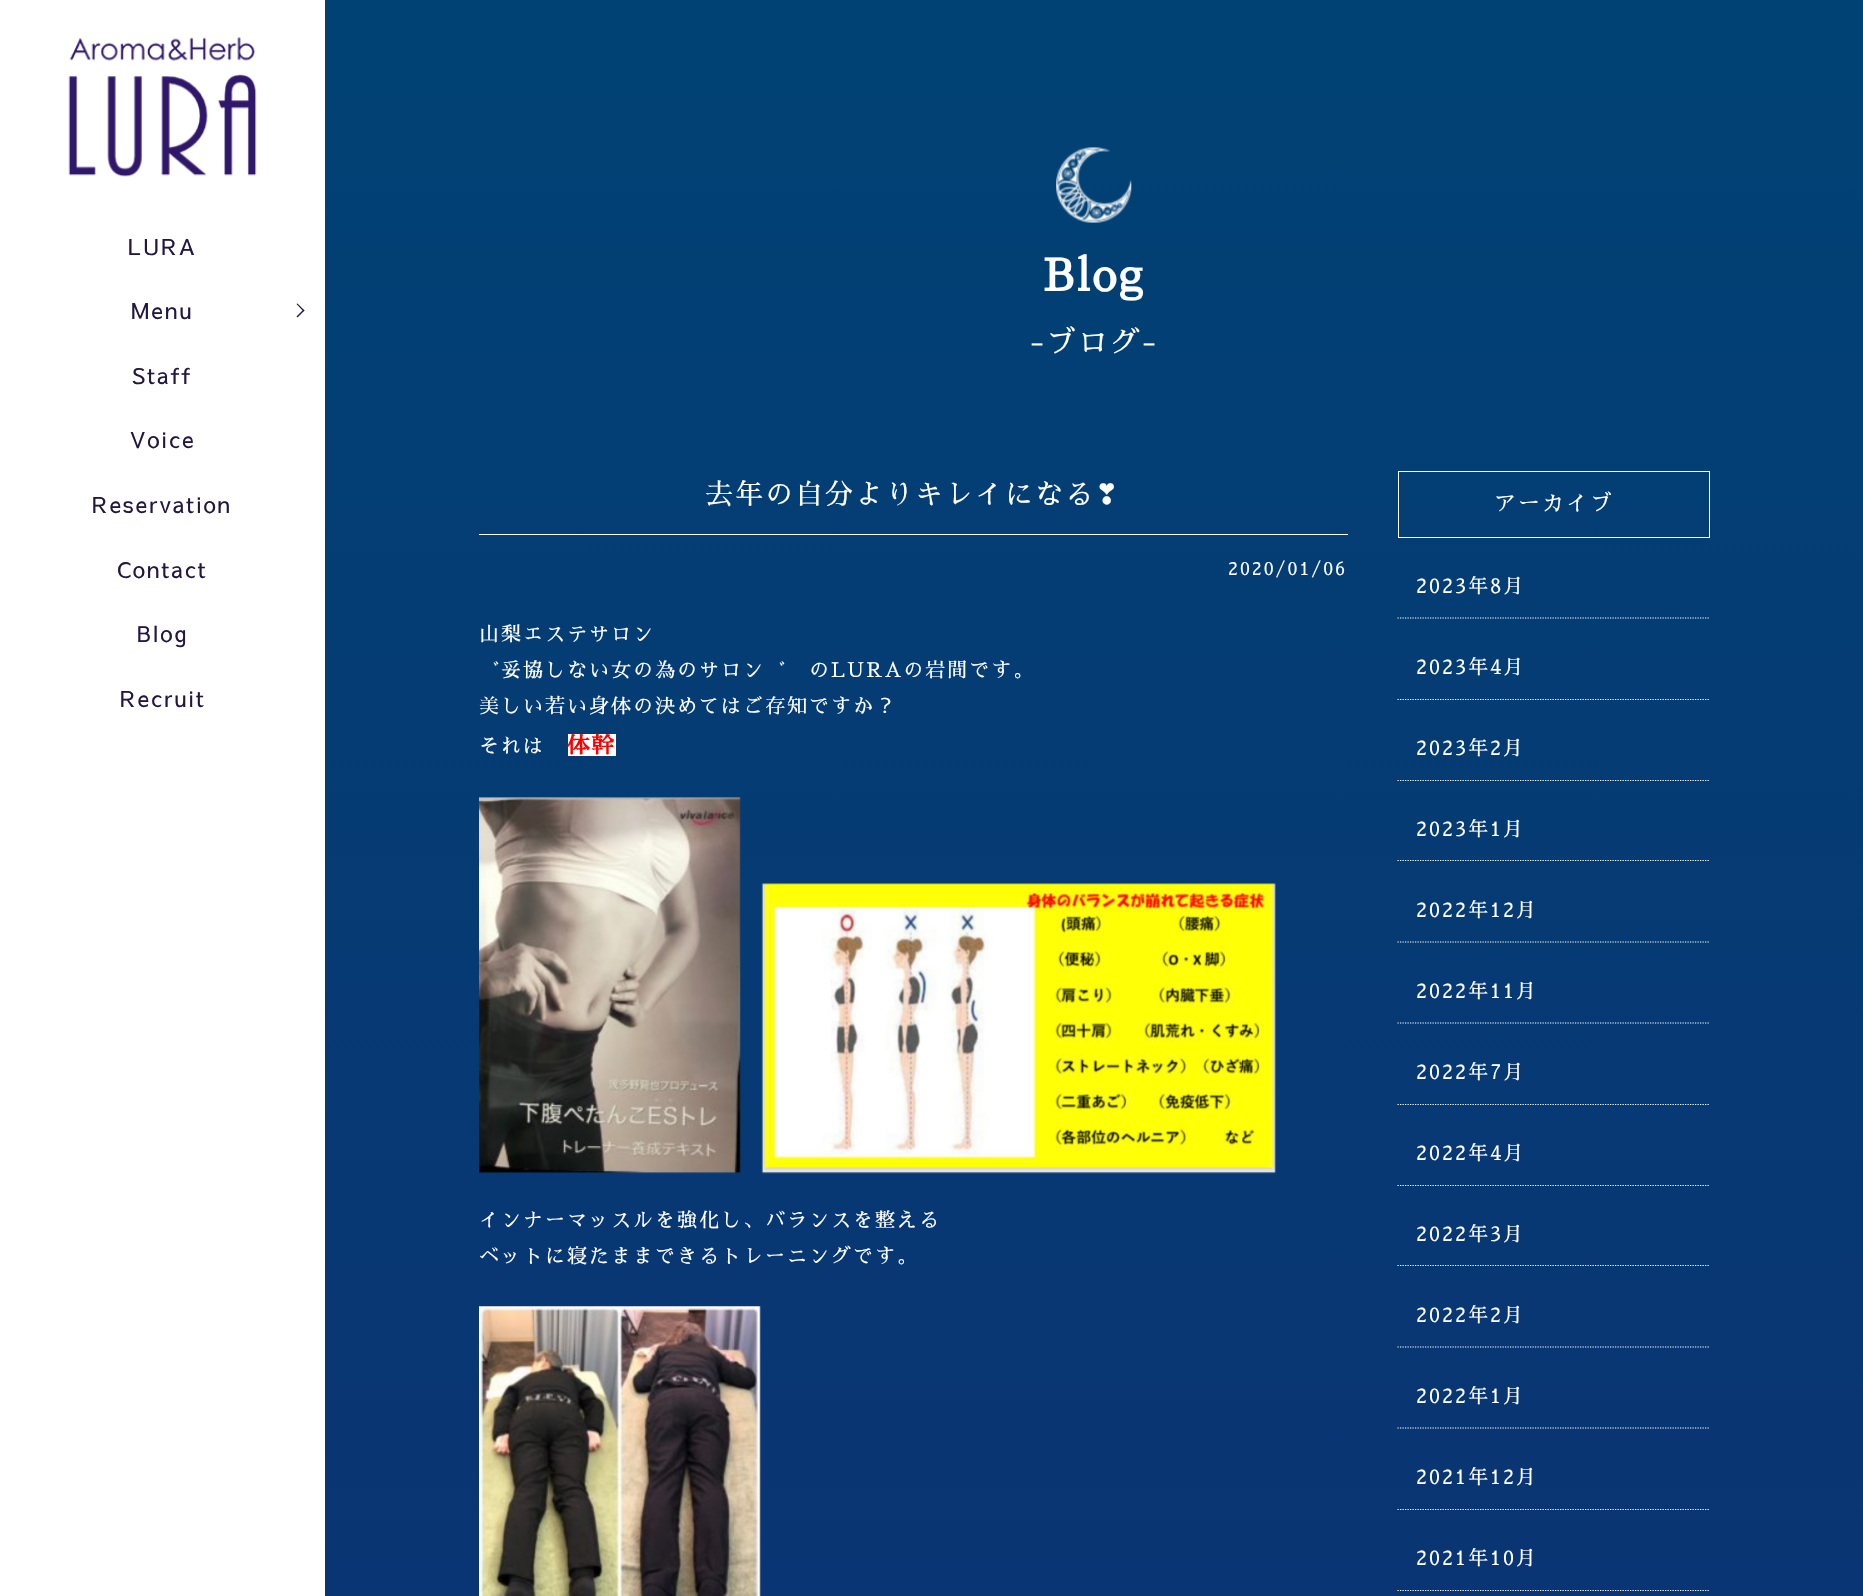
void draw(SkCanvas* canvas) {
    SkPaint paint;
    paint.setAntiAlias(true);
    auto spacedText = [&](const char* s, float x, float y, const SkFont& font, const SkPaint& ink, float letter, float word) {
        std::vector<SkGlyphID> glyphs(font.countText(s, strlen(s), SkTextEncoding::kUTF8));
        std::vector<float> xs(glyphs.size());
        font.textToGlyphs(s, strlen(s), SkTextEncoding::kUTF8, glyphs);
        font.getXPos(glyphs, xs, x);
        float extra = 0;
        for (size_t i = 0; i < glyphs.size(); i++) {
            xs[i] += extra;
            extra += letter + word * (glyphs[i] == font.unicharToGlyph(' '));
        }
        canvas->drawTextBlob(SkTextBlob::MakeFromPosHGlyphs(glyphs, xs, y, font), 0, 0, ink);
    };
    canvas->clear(0xFFFFFFFF);
    canvas->drawImageRect(SkImages::DeferredFromEncodedData(SkData::MakeFromFileName("img1.png")), SkRect::MakeXYWH(68, 37, 189, 140), SkSamplingOptions());
    SkFont font1(fontMgr->matchFamilyStyle("Sawarabi Gothic", SkFontStyle::Normal()), 22);
    font1.setSubpixel(true);
    paint.setColor(0xFF231740);
    spacedText("LURA", 128, 255, font1, paint, 2, 0);
    spacedText("Menu", 131, 319, font1, paint, 2, 0);
    canvas->drawPath(SkPathBuilder().moveTo(297.5f, 303.5f).lineTo(304.5f, 310.5f).lineTo(303.5f, 311.5f).lineTo(296.5f, 304).close().detach(), paint);
    canvas->drawPath(SkPathBuilder().moveTo(303.5f, 309.5f).lineTo(304.5f, 310.5f).lineTo(297.5f, 317.5f).lineTo(296.5f, 316.5f).close().detach(), paint);
    spacedText("Staff", 132, 384, font1, paint, 2, 0);
    spacedText("Voice", 130, 448, font1, paint, 2, 0);
    spacedText("Reservation", 92, 513, font1, paint, 2, 0);
    spacedText("Contact", 117, 578, font1, paint, 2, 0);
    spacedText("Blog", 137, 642, font1, paint, 2, 0);
    spacedText("Recruit", 120, 707, font1, paint, 2, 0);
    canvas->drawImageRect(SkImages::DeferredFromEncodedData(SkData::MakeFromFileName("img2.png")), SkRect::MakeXYWH(325, 0, 1538, 1596), SkSamplingOptions());
    canvas->drawImageRect(SkImages::DeferredFromEncodedData(SkData::MakeFromFileName("img3.png")), SkRect::MakeXYWH(1056, 147, 76, 76), SkSamplingOptions());
    SkFont font2(fontMgr->matchFamilyStyle("Sawarabi Mincho", SkFontStyle::Bold()), 44);
    font2.setSubpixel(true);
    paint.setColor(0xFFFFFFFF);
    spacedText("Blog", 1043, 291, font2, paint, 2, 0);
    SkFont font3(fontMgr->matchFamilyStyle("Sawarabi Mincho", SkFontStyle::Normal()), 30);
    font3.setSubpixel(true);
    spacedText("-ブログ-", 1030, 353, font3, paint, 2, 0);
    canvas->drawRect(SkRect::MakeXYWH(479, 534, 869, 1), paint);
    SkFont font4(fontMgr->matchFamilyStyle("Sawarabi Mincho", SkFontStyle::Normal()), 28);
    font4.setSubpixel(true);
    spacedText("去年の自分よりキレイになる", 705, 504, font4, paint, 2, 0);
    SkFont font5(fontMgr->matchFamilyStyle("DejaVu Sans", SkFontStyle::Normal()), 28);
    font5.setSubpixel(true);
    spacedText("❣", 1095, 504, font5, paint, 2, 0);
    SkFont font6(fontMgr->matchFamilyStyle("Sawarabi Mincho", SkFontStyle::Normal()), 18);
    font6.setSubpixel(true);
    spacedText("2020/01/06", 1228, 575, font6, paint, 2, 0);
    SkFont font7(fontMgr->matchFamilyStyle("Sawarabi Mincho", SkFontStyle::Normal()), 20);
    font7.setSubpixel(true);
    spacedText("山梨エステサロン", 479, 641, font7, paint, 2, 0);
    spacedText("゛妥協しない女の為のサロン゛　のLURAの岩間です。", 479, 677, font7, paint, 2, 0);
    spacedText("美しい若い身体の決めてはご存知ですか？", 479, 713, font7, paint, 2, 0);
    spacedText("それは", 479, 753, font7, paint, 2, 0);
    canvas->drawRect(SkRect::MakeXYWH(568, 734, 48, 22), paint);
    SkFont font8(fontMgr->matchFamilyStyle("Sawarabi Mincho", SkFontStyle::Bold()), 22.5f);
    font8.setSubpixel(true);
    paint.setColor(0xFFFF0000);
    spacedText("体幹", 567, 753, font8, paint, 2, 0);
    canvas->drawImageRect(SkImages::DeferredFromEncodedData(SkData::MakeFromFileName("img4.png")), SkRect::MakeXYWH(479, 797, 262, 377), SkSamplingOptions());
    canvas->drawImageRect(SkImages::DeferredFromEncodedData(SkData::MakeFromFileName("img5.png")), SkRect::MakeXYWH(761, 883, 515, 291), SkSamplingOptions());
    paint.setColor(0xFFFFFFFF);
    spacedText("インナーマッスルを強化し、バランスを整える", 479, 1227, font7, paint, 2, 0);
    spacedText("ベットに寝たままできるトレーニングです。", 479, 1263, font7, paint, 2, 0);
    canvas->drawImageRect(SkImages::DeferredFromEncodedData(SkData::MakeFromFileName("img6.png")), SkRect::MakeXYWH(479, 1306, 282, 290), SkSamplingOptions());
    paint.setStyle(SkPaint::kStroke_Style);
    paint.setStrokeWidth(1);
    canvas->drawRect(SkRect::MakeXYWH(1398.5f, 471.5f, 311, 66), paint);
    SkFont font9(fontMgr->matchFamilyStyle("Sawarabi Mincho", SkFontStyle::Normal()), 22);
    font9.setSubpixel(true);
    paint.setStyle(SkPaint::kFill_Style);
    spacedText("アーカイブ", 1494, 511, font9, paint, 2, 0);
    paint.setStyle(SkPaint::kStroke_Style);
    paint.setStrokeWidth(1.2f);
    paint.setPathEffect(SkDashPathEffect::Make({{1.25f, 1.25f}}, 0));
    canvas->drawPath(SkPathBuilder().moveTo(1397.5f, 618).lineTo(1710, 618).detach(), paint);
    paint.setPathEffect(nullptr);
    paint.setStyle(SkPaint::kFill_Style);
    spacedText("2023年8月", 1416, 593, font7, paint, 2, 0);
    paint.setStyle(SkPaint::kStroke_Style);
    paint.setPathEffect(SkDashPathEffect::Make({{1.25f, 1.25f}}, 0));
    canvas->drawPath(SkPathBuilder().moveTo(1397.5f, 699.5f).lineTo(1710, 699.5f).detach(), paint);
    paint.setPathEffect(nullptr);
    paint.setStyle(SkPaint::kFill_Style);
    spacedText("2023年4月", 1416, 674, font7, paint, 2, 0);
    paint.setStyle(SkPaint::kStroke_Style);
    paint.setPathEffect(SkDashPathEffect::Make({{1.25f, 1.25f}}, 0));
    canvas->drawPath(SkPathBuilder().moveTo(1397.5f, 780.5f).lineTo(1710, 780.5f).detach(), paint);
    paint.setPathEffect(nullptr);
    paint.setStyle(SkPaint::kFill_Style);
    spacedText("2023年2月", 1416, 755, font7, paint, 2, 0);
    paint.setStyle(SkPaint::kStroke_Style);
    paint.setPathEffect(SkDashPathEffect::Make({{1.25f, 1.25f}}, 0));
    canvas->drawPath(SkPathBuilder().moveTo(1397.5f, 860.5f).lineTo(1710, 860.5f).detach(), paint);
    paint.setPathEffect(nullptr);
    paint.setStyle(SkPaint::kFill_Style);
    spacedText("2023年1月", 1416, 836, font7, paint, 2, 0);
    paint.setStyle(SkPaint::kStroke_Style);
    paint.setPathEffect(SkDashPathEffect::Make({{1.25f, 1.25f}}, 0));
    canvas->drawPath(SkPathBuilder().moveTo(1397.5f, 942).lineTo(1710, 942).detach(), paint);
    paint.setPathEffect(nullptr);
    paint.setStyle(SkPaint::kFill_Style);
    spacedText("2022年12月", 1416, 917, font7, paint, 2, 0);
    paint.setStyle(SkPaint::kStroke_Style);
    paint.setPathEffect(SkDashPathEffect::Make({{1.25f, 1.25f}}, 0));
    canvas->drawPath(SkPathBuilder().moveTo(1397.5f, 1023).lineTo(1710, 1023).detach(), paint);
    paint.setPathEffect(nullptr);
    paint.setStyle(SkPaint::kFill_Style);
    spacedText("2022年11月", 1416, 998, font7, paint, 2, 0);
    paint.setStyle(SkPaint::kStroke_Style);
    paint.setPathEffect(SkDashPathEffect::Make({{1.25f, 1.25f}}, 0));
    canvas->drawPath(SkPathBuilder().moveTo(1397.5f, 1104.5f).lineTo(1710, 1104.5f).detach(), paint);
    paint.setPathEffect(nullptr);
    paint.setStyle(SkPaint::kFill_Style);
    spacedText("2022年7月", 1416, 1079, font7, paint, 2, 0);
    paint.setStyle(SkPaint::kStroke_Style);
    paint.setPathEffect(SkDashPathEffect::Make({{1.25f, 1.25f}}, 0));
    canvas->drawPath(SkPathBuilder().moveTo(1397.5f, 1185.5f).lineTo(1710, 1185.5f).detach(), paint);
    paint.setPathEffect(nullptr);
    paint.setStyle(SkPaint::kFill_Style);
    spacedText("2022年4月", 1416, 1160, font7, paint, 2, 0);
    paint.setStyle(SkPaint::kStroke_Style);
    paint.setPathEffect(SkDashPathEffect::Make({{1.25f, 1.25f}}, 0));
    canvas->drawPath(SkPathBuilder().moveTo(1397.5f, 1265.5f).lineTo(1710, 1265.5f).detach(), paint);
    paint.setPathEffect(nullptr);
    paint.setStyle(SkPaint::kFill_Style);
    spacedText("2022年3月", 1416, 1241, font7, paint, 2, 0);
    paint.setStyle(SkPaint::kStroke_Style);
    paint.setPathEffect(SkDashPathEffect::Make({{1.25f, 1.25f}}, 0));
    canvas->drawPath(SkPathBuilder().moveTo(1397.5f, 1347).lineTo(1710, 1347).detach(), paint);
    paint.setPathEffect(nullptr);
    paint.setStyle(SkPaint::kFill_Style);
    spacedText("2022年2月", 1416, 1322, font7, paint, 2, 0);
    paint.setStyle(SkPaint::kStroke_Style);
    paint.setPathEffect(SkDashPathEffect::Make({{1.25f, 1.25f}}, 0));
    canvas->drawPath(SkPathBuilder().moveTo(1397.5f, 1428).lineTo(1710, 1428).detach(), paint);
    paint.setPathEffect(nullptr);
    paint.setStyle(SkPaint::kFill_Style);
    spacedText("2022年1月", 1416, 1403, font7, paint, 2, 0);
    paint.setStyle(SkPaint::kStroke_Style);
    paint.setPathEffect(SkDashPathEffect::Make({{1.25f, 1.25f}}, 0));
    canvas->drawPath(SkPathBuilder().moveTo(1397.5f, 1509.5f).lineTo(1710, 1509.5f).detach(), paint);
    paint.setPathEffect(nullptr);
    paint.setStyle(SkPaint::kFill_Style);
    spacedText("2021年12月", 1416, 1484, font7, paint, 2, 0);
    paint.setStyle(SkPaint::kStroke_Style);
    paint.setPathEffect(SkDashPathEffect::Make({{1.25f, 1.25f}}, 0));
    canvas->drawPath(SkPathBuilder().moveTo(1397.5f, 1590.5f).lineTo(1710, 1590.5f).detach(), paint);
    paint.setPathEffect(nullptr);
    paint.setStyle(SkPaint::kFill_Style);
    spacedText("2021年10月", 1416, 1565, font7, paint, 2, 0);
}
